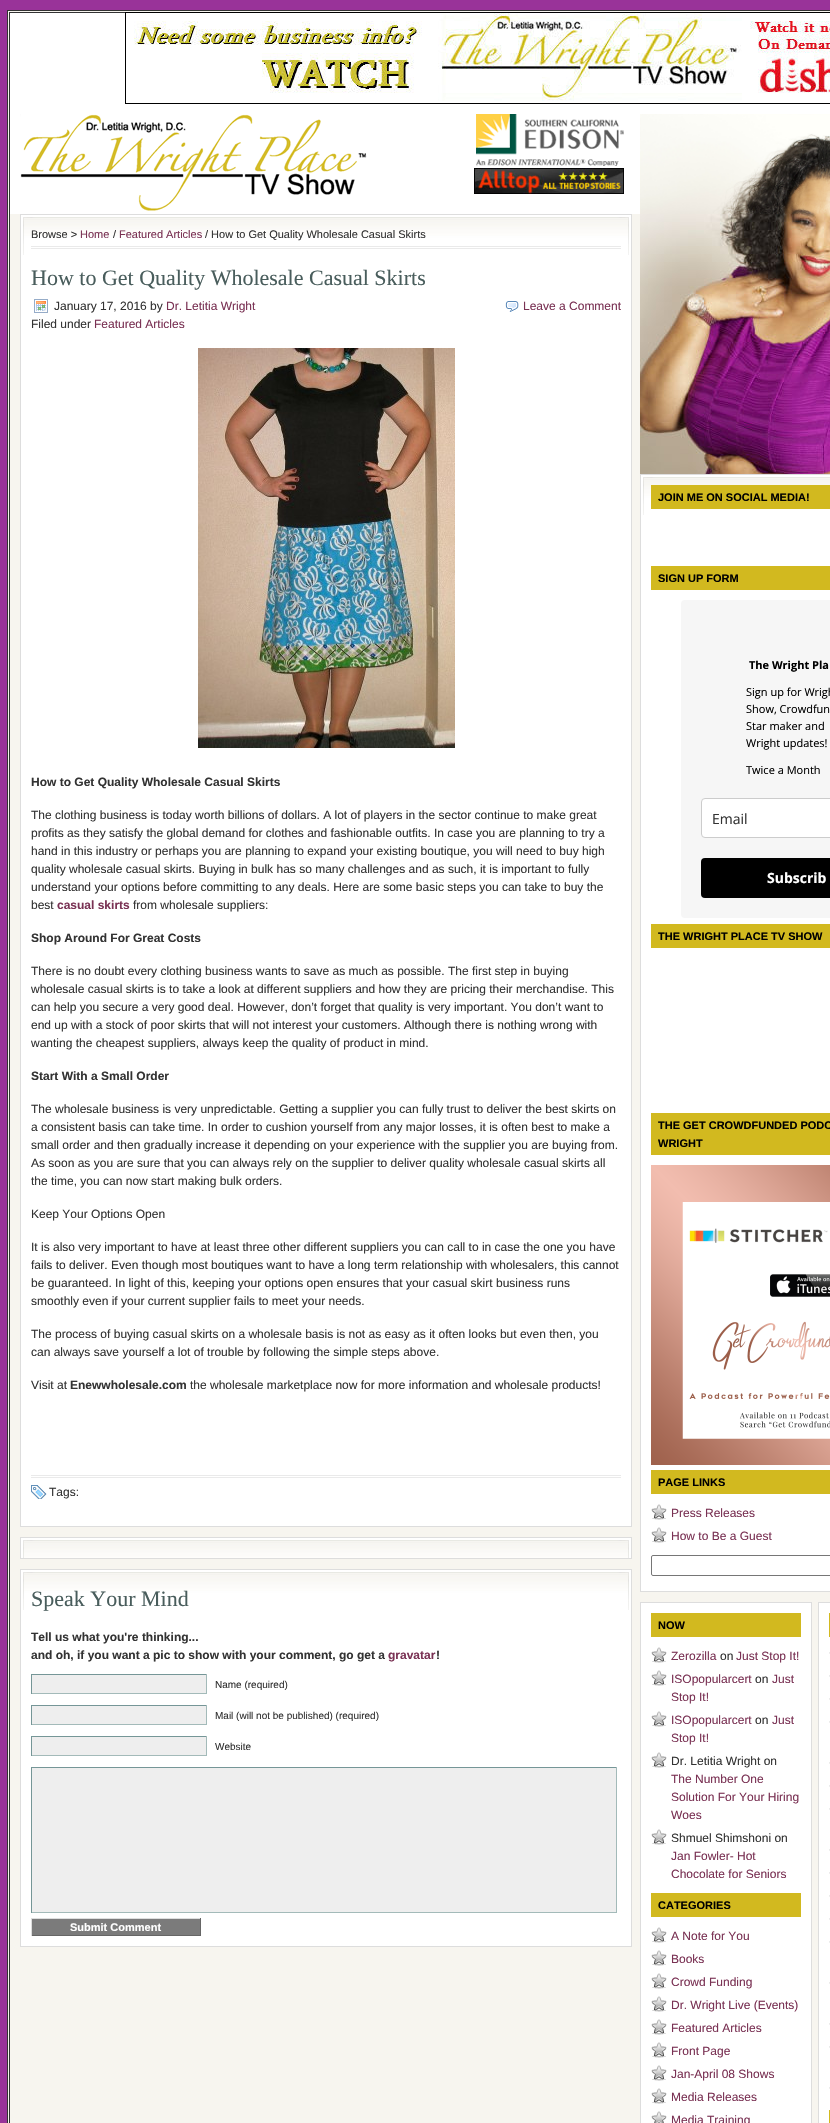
void draw(SkCanvas* canvas) {
    SkPaint paint;
    paint.setAntiAlias(true);
    canvas->clear(0xFF993399);
    paint.setColor(0xFFF7F5EF);
    canvas->drawRect(SkRect::MakeXYWH(7.5f, 10.5f, 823, 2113), paint);
    paint.setStyle(SkPaint::kStroke_Style);
    paint.setStrokeWidth(1);
    paint.setColor(0xFF333333);
    canvas->drawRect(SkRect::MakeXYWH(7.5f, 10.5f, 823, 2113), paint);
    canvas->drawRect(SkRect::MakeXYWH(9.5f, 12.5f, 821, 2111), paint);
    paint.setStyle(SkPaint::kFill_Style);
    paint.setColor(0xFFFFFFFF);
    canvas->drawRect(SkRect::MakeXYWH(10, 13, 820, 201), paint);
    paint.setStyle(SkPaint::kStroke_Style);
    paint.setColor(0xFF000000);
    canvas->drawRect(SkRect::MakeXYWH(125.5f, 12.5f, 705, 91), paint);
    canvas->drawImageRect(SkImages::DeferredFromEncodedData(SkData::MakeFromFileName("img1.png")), SkRect::MakeXYWH(134, 13, 696, 88), SkSamplingOptions());
    canvas->drawImageRect(SkImages::DeferredFromEncodedData(SkData::MakeFromFileName("img2.png")), SkRect::MakeXYWH(640, 114, 190, 100), SkSamplingOptions());
    canvas->drawImageRect(SkImages::DeferredFromEncodedData(SkData::MakeFromFileName("img3.png")), SkRect::MakeXYWH(20, 114, 347, 97), SkSamplingOptions());
    canvas->drawImageRect(SkImages::DeferredFromEncodedData(SkData::MakeFromFileName("img4.png")), SkRect::MakeXYWH(476, 114, 148, 52), SkSamplingOptions());
    canvas->drawImageRect(SkImages::DeferredFromEncodedData(SkData::MakeFromFileName("img5.png")), SkRect::MakeXYWH(474, 168, 150, 26), SkSamplingOptions());
    paint.setStyle(SkPaint::kFill_Style);
    paint.setColor(0xFFFFFFFF);
    canvas->drawRect(SkRect::MakeXYWH(21, 215, 610, 1311), paint);
    canvas->drawImageRect(SkImages::DeferredFromEncodedData(SkData::MakeFromFileName("img6.png")), SkRect::MakeXYWH(23, 217, 606, 38), SkSamplingOptions());
    paint.setStyle(SkPaint::kStroke_Style);
    paint.setColor(0xFFDDDDDD);
    canvas->drawRect(SkRect::MakeXYWH(20.5f, 214.5f, 611, 1312), paint);
    paint.setStyle(SkPaint::kFill_Style);
    paint.setColor(0xFFEAEAEA);
    canvas->drawRect(SkRect::MakeXYWH(31, 246, 590, 1), paint);
    canvas->drawRect(SkRect::MakeXYWH(31, 248, 590, 1), paint);
    SkFont font1(fontMgr->matchFamilyStyle("Liberation Sans", SkFontStyle::Normal()), 11);
    font1.setSubpixel(true);
    paint.setColor(0xFF333333);
    canvas->drawString("Browse >", 31, 238, font1, paint);
    paint.setColor(0xFF7A3254);
    canvas->drawString("Home", 80, 238, font1, paint);
    paint.setColor(0xFF333333);
    canvas->drawString("/", 113, 238, font1, paint);
    paint.setColor(0xFF7A3254);
    canvas->drawString("Featured Articles", 119, 238, font1, paint);
    paint.setColor(0xFF333333);
    canvas->drawString("/ How to Get Quality Wholesale Casual Skirts", 205, 238, font1, paint);
    SkFont font2(fontMgr->matchFamilyStyle("Liberation Serif", SkFontStyle::Normal()), 22);
    font2.setSubpixel(true);
    paint.setColor(0xFF495D5C);
    canvas->drawString("How to Get Quality Wholesale Casual Skirts", 31, 285, font2, paint);
    canvas->drawImageRect(SkImages::DeferredFromEncodedData(SkData::MakeFromFileName("img7.png")), SkRect::MakeXYWH(34, 299, 14, 14), SkSamplingOptions());
    SkFont font3(fontMgr->matchFamilyStyle("Liberation Sans", SkFontStyle::Normal()), 12);
    font3.setSubpixel(true);
    paint.setColor(0xFF333333);
    canvas->drawString("January 17, 2016 by", 54, 310, font3, paint);
    paint.setColor(0xFF7A3254);
    canvas->drawString("Dr. Letitia Wright", 166, 310, font3, paint);
    paint.setColor(0xFF333333);
    canvas->drawString("Filed under", 31, 328, font3, paint);
    paint.setColor(0xFF7A3254);
    canvas->drawString("Featured Articles", 94, 328, font3, paint);
    canvas->drawImageRect(SkImages::DeferredFromEncodedData(SkData::MakeFromFileName("img8.png")), SkRect::MakeXYWH(505, 301, 14, 11), SkSamplingOptions());
    canvas->drawString("Leave a Comment", 523, 310, font3, paint);
    canvas->drawImageRect(SkImages::DeferredFromEncodedData(SkData::MakeFromFileName("img9.png")), SkRect::MakeXYWH(198, 348, 257, 400), SkSamplingOptions());
    SkFont font4(fontMgr->matchFamilyStyle("Liberation Sans", SkFontStyle::Bold()), 12);
    font4.setSubpixel(true);
    paint.setColor(0xFF333333);
    canvas->drawString("How to Get Quality Wholesale Casual Skirts", 31, 786, font4, paint);
    canvas->drawString("The clothing business is today worth billions of dollars. A lot of players in the sector continue to make great", 31, 819, font3, paint);
    canvas->drawString("profits as they satisfy the global demand for clothes and fashionable outfits. In case you are planning to try a", 31, 837, font3, paint);
    canvas->drawString("hand in this industry or perhaps you are planning to expand your existing boutique, you will need to buy high", 31, 855, font3, paint);
    canvas->drawString("quality wholesale casual skirts. Buying in bulk has so many challenges and as such, it is important to fully", 31, 873, font3, paint);
    canvas->drawString("understand your options before committing to any deals. Here are some basic steps you can take to buy the", 31, 891, font3, paint);
    canvas->drawString("best", 31, 909, font3, paint);
    paint.setColor(0xFF7A3254);
    canvas->drawString("casual skirts", 57, 909, font4, paint);
    paint.setColor(0xFF333333);
    canvas->drawString("from wholesale suppliers:", 133, 909, font3, paint);
    canvas->drawString("Shop Around For Great Costs", 31, 942, font4, paint);
    canvas->drawString("There is no doubt every clothing business wants to save as much as possible. The first step in buying", 31, 975, font3, paint);
    canvas->drawString("wholesale casual skirts is to take a look at different suppliers and how they are pricing their merchandise. This", 31, 993, font3, paint);
    canvas->drawString("can help you secure a very good deal. However, don’t forget that quality is very important. You don’t want to", 31, 1011, font3, paint);
    canvas->drawString("end up with a stock of poor skirts that will not interest your customers. Although there is nothing wrong with", 31, 1029, font3, paint);
    canvas->drawString("wanting the cheapest suppliers, always keep the quality of product in mind.", 31, 1047, font3, paint);
    canvas->drawString("Start With a Small Order", 31, 1080, font4, paint);
    canvas->drawString("The wholesale business is very unpredictable. Getting a supplier you can fully trust to deliver the best skirts on", 31, 1113, font3, paint);
    canvas->drawString("a consistent basis can take time. In order to cushion yourself from any major losses, it is often best to make a", 31, 1131, font3, paint);
    canvas->drawString("small order and then gradually increase it depending on your experience with the supplier you are buying from.", 31, 1149, font3, paint);
    canvas->drawString("As soon as you are sure that you can always rely on the supplier to deliver quality wholesale casual skirts all", 31, 1167, font3, paint);
    canvas->drawString("the time, you can now start making bulk orders.", 31, 1185, font3, paint);
    canvas->drawString("Keep Your Options Open", 31, 1218, font3, paint);
    canvas->drawString("It is also very important to have at least three other different suppliers you can call to in case the one you have", 31, 1251, font3, paint);
    canvas->drawString("fails to deliver. Even though most boutiques want to have a long term relationship with wholesalers, this cannot", 31, 1269, font3, paint);
    canvas->drawString("be guaranteed. In light of this, keeping your options open ensures that your casual skirt business runs", 31, 1287, font3, paint);
    canvas->drawString("smoothly even if your current supplier fails to meet your needs.", 31, 1305, font3, paint);
    canvas->drawString("The process of buying casual skirts on a wholesale basis is not as easy as it often looks but even then, you", 31, 1338, font3, paint);
    canvas->drawString("can always save yourself a lot of trouble by following the simple steps above.", 31, 1356, font3, paint);
    canvas->drawString("Visit at", 31, 1389, font3, paint);
    canvas->drawString("Enewwholesale.com", 70, 1389, font4, paint);
    canvas->drawString("the wholesale marketplace now for more information and wholesale products!", 190, 1389, font3, paint);
    paint.setColor(0xFFEAEAEA);
    canvas->drawRect(SkRect::MakeXYWH(31, 1475, 590, 1), paint);
    canvas->drawRect(SkRect::MakeXYWH(31, 1477, 590, 1), paint);
    canvas->drawImageRect(SkImages::DeferredFromEncodedData(SkData::MakeFromFileName("img10.png")), SkRect::MakeXYWH(31, 1485, 16, 14), SkSamplingOptions());
    paint.setColor(0xFF333333);
    canvas->drawString("Tags:", 49, 1496, font3, paint);
    paint.setColor(0xFFFFFFFF);
    canvas->drawRect(SkRect::MakeXYWH(21, 1538, 610, 20), paint);
    canvas->drawImageRect(SkImages::DeferredFromEncodedData(SkData::MakeFromFileName("img11.png")), SkRect::MakeXYWH(23, 1540, 606, 18), SkSamplingOptions());
    paint.setStyle(SkPaint::kStroke_Style);
    paint.setColor(0xFFDDDDDD);
    canvas->drawRect(SkRect::MakeXYWH(20.5f, 1537.5f, 611, 21), paint);
    paint.setStyle(SkPaint::kFill_Style);
    paint.setColor(0xFFFFFFFF);
    canvas->drawRect(SkRect::MakeXYWH(21, 1570, 610, 376), paint);
    canvas->drawImageRect(SkImages::DeferredFromEncodedData(SkData::MakeFromFileName("img6.png")), SkRect::MakeXYWH(23, 1572, 606, 38), SkSamplingOptions());
    paint.setStyle(SkPaint::kStroke_Style);
    paint.setColor(0xFFDDDDDD);
    canvas->drawRect(SkRect::MakeXYWH(20.5f, 1569.5f, 611, 377), paint);
    paint.setStyle(SkPaint::kFill_Style);
    paint.setColor(0xFF495D5C);
    canvas->drawString("Speak Your Mind", 31, 1606, font2, paint);
    paint.setColor(0xFF333333);
    canvas->drawString("Tell us what you're thinking...", 31, 1641, font4, paint);
    canvas->drawString("and oh, if you want a pic to show with your comment, go get a", 31, 1659, font4, paint);
    paint.setColor(0xFF7A3254);
    canvas->drawString("gravatar", 388, 1659, font4, paint);
    paint.setColor(0xFF333333);
    canvas->drawString("!", 436, 1659, font4, paint);
    paint.setColor(0xFFEEEEEE);
    canvas->drawRect(SkRect::MakeXYWH(32, 1675, 174, 18), paint);
    paint.setColor(0xFF759697);
    canvas->drawRect(SkRect::MakeXYWH(31, 1674, 176, 1), paint);
    paint.setColor(0xFFA3BAB9);
    canvas->drawRect(SkRect::MakeXYWH(206, 1674, 1, 20), paint);
    canvas->drawRect(SkRect::MakeXYWH(31, 1693, 176, 1), paint);
    paint.setColor(0xFF759697);
    canvas->drawRect(SkRect::MakeXYWH(31, 1674, 1, 20), paint);
    SkFont font5(fontMgr->matchFamilyStyle("Liberation Sans", SkFontStyle::Normal()), 10);
    font5.setSubpixel(true);
    paint.setColor(0xFF333333);
    canvas->drawString("Name (required)", 215, 1688, font5, paint);
    paint.setColor(0xFFEEEEEE);
    canvas->drawRect(SkRect::MakeXYWH(32, 1706, 174, 18), paint);
    paint.setColor(0xFF759697);
    canvas->drawRect(SkRect::MakeXYWH(31, 1705, 176, 1), paint);
    paint.setColor(0xFFA3BAB9);
    canvas->drawRect(SkRect::MakeXYWH(206, 1705, 1, 20), paint);
    canvas->drawRect(SkRect::MakeXYWH(31, 1724, 176, 1), paint);
    paint.setColor(0xFF759697);
    canvas->drawRect(SkRect::MakeXYWH(31, 1705, 1, 20), paint);
    paint.setColor(0xFF333333);
    canvas->drawString("Mail (will not be published) (required)", 215, 1719, font5, paint);
    paint.setColor(0xFFEEEEEE);
    canvas->drawRect(SkRect::MakeXYWH(32, 1737, 174, 18), paint);
    paint.setColor(0xFF759697);
    canvas->drawRect(SkRect::MakeXYWH(31, 1736, 176, 1), paint);
    paint.setColor(0xFFA3BAB9);
    canvas->drawRect(SkRect::MakeXYWH(206, 1736, 1, 20), paint);
    canvas->drawRect(SkRect::MakeXYWH(31, 1755, 176, 1), paint);
    paint.setColor(0xFF759697);
    canvas->drawRect(SkRect::MakeXYWH(31, 1736, 1, 20), paint);
    paint.setColor(0xFF333333);
    canvas->drawString("Website", 215, 1750, font5, paint);
    paint.setColor(0xFFEEEEEE);
    canvas->drawRect(SkRect::MakeXYWH(32, 1768, 584, 144), paint);
    paint.setColor(0xFF759697);
    canvas->drawRect(SkRect::MakeXYWH(31, 1767, 586, 1), paint);
    paint.setColor(0xFFA3BAB9);
    canvas->drawRect(SkRect::MakeXYWH(616, 1767, 1, 146), paint);
    canvas->drawRect(SkRect::MakeXYWH(31, 1912, 586, 1), paint);
    paint.setColor(0xFF759697);
    canvas->drawRect(SkRect::MakeXYWH(31, 1767, 1, 146), paint);
    paint.setColor(0xFF7B7B7B);
    canvas->drawRect(SkRect::MakeXYWH(32, 1919, 168, 16), paint);
    paint.setColor(0xFFDDDDDD);
    canvas->drawRect(SkRect::MakeXYWH(31, 1918, 170, 1), paint);
    paint.setColor(0xFF666666);
    canvas->drawRect(SkRect::MakeXYWH(200, 1918, 1, 18), paint);
    canvas->drawRect(SkRect::MakeXYWH(31, 1935, 170, 1), paint);
    paint.setColor(0xFFDDDDDD);
    canvas->drawRect(SkRect::MakeXYWH(31, 1918, 1, 18), paint);
    SkFont font6(fontMgr->matchFamilyStyle("Liberation Sans", SkFontStyle::Bold()), 11);
    font6.setSubpixel(true);
    paint.setColor(0xFFFFFFFF);
    canvas->drawString("Submit Comment", 70, 1931, font6, paint);
    canvas->drawImageRect(SkImages::DeferredFromEncodedData(SkData::MakeFromFileName("img12.png")), SkRect::MakeXYWH(640, 214, 190, 260), SkSamplingOptions());
    canvas->drawRect(SkRect::MakeXYWH(641, 475, 189, 1116), paint);
    canvas->drawImageRect(SkImages::DeferredFromEncodedData(SkData::MakeFromFileName("img13.png")), SkRect::MakeXYWH(643, 477, 187, 38), SkSamplingOptions());
    paint.setStyle(SkPaint::kStroke_Style);
    paint.setColor(0xFFDDDDDD);
    canvas->drawRect(SkRect::MakeXYWH(640.5f, 474.5f, 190, 1117), paint);
    paint.setStyle(SkPaint::kFill_Style);
    paint.setColor(0xFFD2B91F);
    canvas->drawRect(SkRect::MakeXYWH(651, 485, 179, 24), paint);
    paint.setColor(0xFF000000);
    canvas->drawString("JOIN ME ON SOCIAL MEDIA!", 658, 501, font6, paint);
    paint.setColor(0xFFD2B91F);
    canvas->drawRect(SkRect::MakeXYWH(651, 566, 179, 24), paint);
    paint.setColor(0xFF000000);
    canvas->drawString("SIGN UP FORM", 658, 582, font6, paint);
    paint.setColor(0xFFF6F6F6);
    canvas->drawRoundRect(SkRect::MakeXYWH(681, 600, 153, 318), 4, 4, paint);
    SkFont font7(fontMgr->matchFamilyStyle("Open Sans", SkFontStyle::Bold()), 11);
    font7.setSubpixel(true);
    paint.setColor(0xFF000000);
    canvas->drawString("The Wright Pla", 749, 669, font7, paint);
    SkFont font8(fontMgr->matchFamilyStyle("Open Sans", SkFontStyle::Normal()), 11);
    font8.setSubpixel(true);
    canvas->drawString("Sign up for Wrigh", 746, 696, font8, paint);
    canvas->drawString("Show, Crowdfun", 746, 713, font8, paint);
    canvas->drawString("Star maker and", 746, 730, font8, paint);
    canvas->drawString("Wright updates!", 746, 747, font8, paint);
    canvas->drawString("Twice a Month", 746, 774, font8, paint);
    paint.setColor(0xFFFFFFFF);
    canvas->drawRoundRect(SkRect::MakeXYWH(701.5f, 798.5f, 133, 39), 3.5f, 3.5f, paint);
    paint.setStyle(SkPaint::kStroke_Style);
    paint.setColor(0xFFCCCCCC);
    canvas->drawRoundRect(SkRect::MakeXYWH(701.5f, 798.5f, 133, 39), 3.5f, 3.5f, paint);
    SkFont font9(fontMgr->matchFamilyStyle("Open Sans", SkFontStyle::Normal()), 14);
    font9.setSubpixel(true);
    paint.setStyle(SkPaint::kFill_Style);
    paint.setColor(0xFF333333);
    canvas->drawString("Email", 712, 824, font9, paint);
    paint.setColor(0xFF000000);
    canvas->drawRoundRect(SkRect::MakeXYWH(701, 858, 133, 40), 4, 4, paint);
    SkFont font10(fontMgr->matchFamilyStyle("Open Sans", SkFontStyle::Bold()), 14);
    font10.setSubpixel(true);
    paint.setColor(0xFFFFFFFF);
    canvas->drawString("Subscrib", 767, 883, font10, paint);
    paint.setColor(0xFFD2B91F);
    canvas->drawRect(SkRect::MakeXYWH(651, 924, 179, 24), paint);
    paint.setColor(0xFF000000);
    canvas->drawString("THE WRIGHT PLACE TV SHOW", 658, 940, font6, paint);
    paint.setColor(0xFFD2B91F);
    canvas->drawRect(SkRect::MakeXYWH(651, 1113, 179, 42), paint);
    paint.setColor(0xFF000000);
    canvas->drawString("THE GET CROWDFUNDED PODC", 658, 1129, font6, paint);
    canvas->drawString("WRIGHT", 658, 1147, font6, paint);
    canvas->drawImageRect(SkImages::DeferredFromEncodedData(SkData::MakeFromFileName("img14.png")), SkRect::MakeXYWH(651, 1165, 179, 300), SkSamplingOptions());
    paint.setColor(0xFFD2B91F);
    canvas->drawRect(SkRect::MakeXYWH(651, 1470, 179, 24), paint);
    paint.setColor(0xFF000000);
    canvas->drawString("PAGE LINKS", 658, 1486, font6, paint);
    canvas->drawImageRect(SkImages::DeferredFromEncodedData(SkData::MakeFromFileName("img15.png")), SkRect::MakeXYWH(651, 1504, 16, 16), SkSamplingOptions());
    paint.setColor(0xFF7A3254);
    canvas->drawString("Press Releases", 671, 1517, font3, paint);
    canvas->drawImageRect(SkImages::DeferredFromEncodedData(SkData::MakeFromFileName("img15.png")), SkRect::MakeXYWH(651, 1527, 16, 16), SkSamplingOptions());
    canvas->drawString("How to Be a Guest", 671, 1540, font3, paint);
    paint.setStyle(SkPaint::kStroke_Style);
    paint.setColor(0xFF767676);
    canvas->drawRoundRect(SkRect::MakeXYWH(651.5f, 1555.5f, 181, 20), 1.5f, 1.5f, paint);
    paint.setStyle(SkPaint::kFill_Style);
    paint.setColor(0xFFFFFFFF);
    canvas->drawRect(SkRect::MakeXYWH(640.5f, 1602.5f, 171, 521), paint);
    paint.setStyle(SkPaint::kStroke_Style);
    paint.setColor(0xFFDDDDDD);
    canvas->drawRect(SkRect::MakeXYWH(640.5f, 1602.5f, 171, 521), paint);
    paint.setStyle(SkPaint::kFill_Style);
    paint.setColor(0xFFD2B91F);
    canvas->drawRect(SkRect::MakeXYWH(651, 1613, 150, 24), paint);
    paint.setColor(0xFF000000);
    canvas->drawString("NOW", 658, 1629, font6, paint);
    canvas->drawImageRect(SkImages::DeferredFromEncodedData(SkData::MakeFromFileName("img15.png")), SkRect::MakeXYWH(651, 1647, 16, 16), SkSamplingOptions());
    paint.setColor(0xFF7A3254);
    canvas->drawString("Zerozilla", 671, 1660, font3, paint);
    paint.setColor(0xFF333333);
    canvas->drawString("on", 720, 1660, font3, paint);
    paint.setColor(0xFF7A3254);
    canvas->drawString("Just Stop It!", 736, 1660, font3, paint);
    canvas->drawImageRect(SkImages::DeferredFromEncodedData(SkData::MakeFromFileName("img15.png")), SkRect::MakeXYWH(651, 1670, 16, 16), SkSamplingOptions());
    canvas->drawString("ISOpopularcert", 671, 1683, font3, paint);
    paint.setColor(0xFF333333);
    canvas->drawString("on", 755, 1683, font3, paint);
    paint.setColor(0xFF7A3254);
    canvas->drawString("Just", 772, 1683, font3, paint);
    canvas->drawString("Stop It!", 671, 1701, font3, paint);
    canvas->drawImageRect(SkImages::DeferredFromEncodedData(SkData::MakeFromFileName("img15.png")), SkRect::MakeXYWH(651, 1711, 16, 16), SkSamplingOptions());
    canvas->drawString("ISOpopularcert", 671, 1724, font3, paint);
    paint.setColor(0xFF333333);
    canvas->drawString("on", 755, 1724, font3, paint);
    paint.setColor(0xFF7A3254);
    canvas->drawString("Just", 772, 1724, font3, paint);
    canvas->drawString("Stop It!", 671, 1742, font3, paint);
    canvas->drawImageRect(SkImages::DeferredFromEncodedData(SkData::MakeFromFileName("img15.png")), SkRect::MakeXYWH(651, 1752, 16, 16), SkSamplingOptions());
    paint.setColor(0xFF333333);
    canvas->drawString("Dr. Letitia Wright on", 671, 1765, font3, paint);
    paint.setColor(0xFF7A3254);
    canvas->drawString("The Number One", 671, 1783, font3, paint);
    canvas->drawString("Solution For Your Hiring", 671, 1801, font3, paint);
    canvas->drawString("Woes", 671, 1819, font3, paint);
    canvas->drawImageRect(SkImages::DeferredFromEncodedData(SkData::MakeFromFileName("img15.png")), SkRect::MakeXYWH(651, 1829, 16, 16), SkSamplingOptions());
    paint.setColor(0xFF333333);
    canvas->drawString("Shmuel Shimshoni on", 671, 1842, font3, paint);
    paint.setColor(0xFF7A3254);
    canvas->drawString("Jan Fowler- Hot", 671, 1860, font3, paint);
    canvas->drawString("Chocolate for Seniors", 671, 1878, font3, paint);
    paint.setColor(0xFFD2B91F);
    canvas->drawRect(SkRect::MakeXYWH(651, 1893, 150, 24), paint);
    paint.setColor(0xFF000000);
    canvas->drawString("CATEGORIES", 658, 1909, font6, paint);
    canvas->drawImageRect(SkImages::DeferredFromEncodedData(SkData::MakeFromFileName("img15.png")), SkRect::MakeXYWH(651, 1927, 16, 16), SkSamplingOptions());
    paint.setColor(0xFF7A3254);
    canvas->drawString("A Note for You", 671, 1940, font3, paint);
    canvas->drawImageRect(SkImages::DeferredFromEncodedData(SkData::MakeFromFileName("img15.png")), SkRect::MakeXYWH(651, 1950, 16, 16), SkSamplingOptions());
    canvas->drawString("Books", 671, 1963, font3, paint);
    canvas->drawImageRect(SkImages::DeferredFromEncodedData(SkData::MakeFromFileName("img15.png")), SkRect::MakeXYWH(651, 1973, 16, 16), SkSamplingOptions());
    canvas->drawString("Crowd Funding", 671, 1986, font3, paint);
    canvas->drawImageRect(SkImages::DeferredFromEncodedData(SkData::MakeFromFileName("img15.png")), SkRect::MakeXYWH(651, 1996, 16, 16), SkSamplingOptions());
    canvas->drawString("Dr. Wright Live (Events)", 671, 2009, font3, paint);
    canvas->drawImageRect(SkImages::DeferredFromEncodedData(SkData::MakeFromFileName("img15.png")), SkRect::MakeXYWH(651, 2019, 16, 16), SkSamplingOptions());
    canvas->drawString("Featured Articles", 671, 2032, font3, paint);
    canvas->drawImageRect(SkImages::DeferredFromEncodedData(SkData::MakeFromFileName("img15.png")), SkRect::MakeXYWH(651, 2042, 16, 16), SkSamplingOptions());
    canvas->drawString("Front Page", 671, 2055, font3, paint);
    canvas->drawImageRect(SkImages::DeferredFromEncodedData(SkData::MakeFromFileName("img15.png")), SkRect::MakeXYWH(651, 2065, 16, 16), SkSamplingOptions());
    canvas->drawString("Jan-April 08 Shows", 671, 2078, font3, paint);
    canvas->drawImageRect(SkImages::DeferredFromEncodedData(SkData::MakeFromFileName("img15.png")), SkRect::MakeXYWH(651, 2088, 16, 16), SkSamplingOptions());
    canvas->drawString("Media Releases", 671, 2101, font3, paint);
    canvas->drawImageRect(SkImages::DeferredFromEncodedData(SkData::MakeFromFileName("img16.png")), SkRect::MakeXYWH(651, 2111, 16, 12), SkSamplingOptions());
    canvas->drawString("Media Training", 671, 2124, font3, paint);
    paint.setColor(0xFFFFFFFF);
    canvas->drawRect(SkRect::MakeXYWH(818.5f, 1602.5f, 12, 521), paint);
    paint.setStyle(SkPaint::kStroke_Style);
    paint.setColor(0xFFDDDDDD);
    canvas->drawRect(SkRect::MakeXYWH(818.5f, 1602.5f, 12, 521), paint);
    paint.setStyle(SkPaint::kFill_Style);
    paint.setColor(0xFFD2B91F);
    canvas->drawRect(SkRect::MakeXYWH(829, 1613, 1, 24), paint);
    canvas->drawImageRect(SkImages::DeferredFromEncodedData(SkData::MakeFromFileName("img17.png")), SkRect::MakeXYWH(829, 1652, 1, 2), SkSamplingOptions());
    canvas->drawImageRect(SkImages::DeferredFromEncodedData(SkData::MakeFromFileName("img17.png")), SkRect::MakeXYWH(829, 1675, 1, 2), SkSamplingOptions());
    canvas->drawImageRect(SkImages::DeferredFromEncodedData(SkData::MakeFromFileName("img17.png")), SkRect::MakeXYWH(829, 1698, 1, 2), SkSamplingOptions());
    canvas->drawImageRect(SkImages::DeferredFromEncodedData(SkData::MakeFromFileName("img17.png")), SkRect::MakeXYWH(829, 1721, 1, 2), SkSamplingOptions());
    canvas->drawImageRect(SkImages::DeferredFromEncodedData(SkData::MakeFromFileName("img17.png")), SkRect::MakeXYWH(829, 1762, 1, 2), SkSamplingOptions());
    canvas->drawImageRect(SkImages::DeferredFromEncodedData(SkData::MakeFromFileName("img17.png")), SkRect::MakeXYWH(829, 1785, 1, 2), SkSamplingOptions());
    canvas->drawImageRect(SkImages::DeferredFromEncodedData(SkData::MakeFromFileName("img17.png")), SkRect::MakeXYWH(829, 1808, 1, 2), SkSamplingOptions());
    canvas->drawImageRect(SkImages::DeferredFromEncodedData(SkData::MakeFromFileName("img17.png")), SkRect::MakeXYWH(829, 1849, 1, 2), SkSamplingOptions());
    canvas->drawImageRect(SkImages::DeferredFromEncodedData(SkData::MakeFromFileName("img17.png")), SkRect::MakeXYWH(829, 1872, 1, 2), SkSamplingOptions());
    canvas->drawImageRect(SkImages::DeferredFromEncodedData(SkData::MakeFromFileName("img17.png")), SkRect::MakeXYWH(829, 1895, 1, 2), SkSamplingOptions());
    canvas->drawImageRect(SkImages::DeferredFromEncodedData(SkData::MakeFromFileName("img17.png")), SkRect::MakeXYWH(829, 1918, 1, 2), SkSamplingOptions());
    canvas->drawImageRect(SkImages::DeferredFromEncodedData(SkData::MakeFromFileName("img17.png")), SkRect::MakeXYWH(829, 1941, 1, 2), SkSamplingOptions());
    canvas->drawImageRect(SkImages::DeferredFromEncodedData(SkData::MakeFromFileName("img17.png")), SkRect::MakeXYWH(829, 1982, 1, 2), SkSamplingOptions());
    canvas->drawImageRect(SkImages::DeferredFromEncodedData(SkData::MakeFromFileName("img17.png")), SkRect::MakeXYWH(829, 2023, 1, 2), SkSamplingOptions());
    canvas->drawImageRect(SkImages::DeferredFromEncodedData(SkData::MakeFromFileName("img17.png")), SkRect::MakeXYWH(829, 2046, 1, 2), SkSamplingOptions());
    canvas->drawImageRect(SkImages::DeferredFromEncodedData(SkData::MakeFromFileName("img17.png")), SkRect::MakeXYWH(829, 2087, 1, 2), SkSamplingOptions());
    canvas->drawRect(SkRect::MakeXYWH(829, 2110, 1, 13), paint);
}
